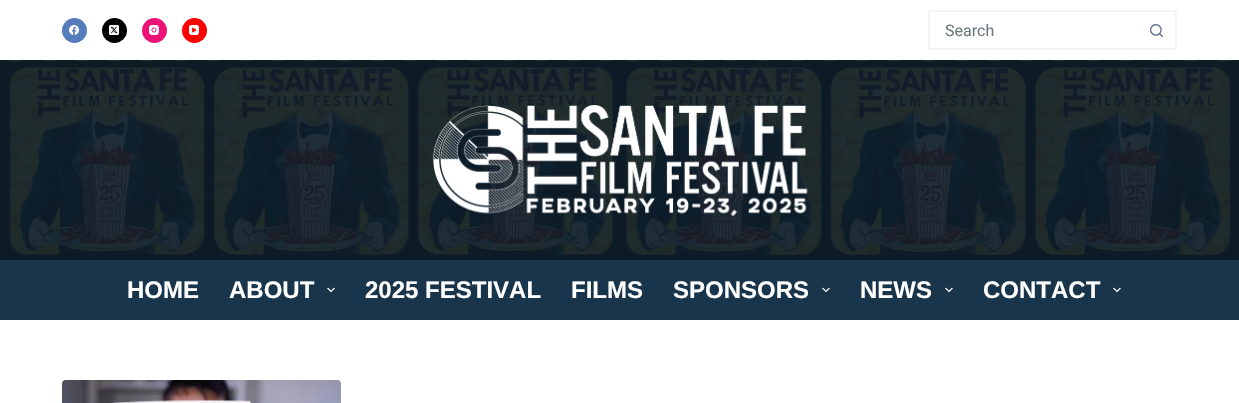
void draw(SkCanvas* canvas) {
    SkPaint paint;
    paint.setAntiAlias(true);
    canvas->clear(0xFFFFFFFF);
    paint.setColor(0xFF557DBC);
    canvas->drawCircle(74.5f, 30.5f, 12.5f, paint);
    canvas->drawImageRect(SkImages::DeferredFromEncodedData(SkData::MakeFromFileName("img1.png")), SkRect::MakeXYWH(69, 25, 10, 10), SkSamplingOptions());
    paint.setColor(0xFF000000);
    canvas->drawCircle(114.5f, 30.5f, 12.5f, paint);
    canvas->drawImageRect(SkImages::DeferredFromEncodedData(SkData::MakeFromFileName("img2.png")), SkRect::MakeXYWH(109, 25, 10, 10), SkSamplingOptions());
    paint.setColor(0xFFED1376);
    canvas->drawCircle(154.5f, 30.5f, 12.5f, paint);
    canvas->drawImageRect(SkImages::DeferredFromEncodedData(SkData::MakeFromFileName("img3.png")), SkRect::MakeXYWH(149, 25, 10, 10), SkSamplingOptions());
    paint.setColor(0xFFFF0000);
    canvas->drawCircle(194.5f, 30.5f, 12.5f, paint);
    canvas->drawImageRect(SkImages::DeferredFromEncodedData(SkData::MakeFromFileName("img4.png")), SkRect::MakeXYWH(189, 25, 10, 10), SkSamplingOptions());
    paint.setColor(0xFFF2F5F7);
    canvas->drawPath(SkPathBuilder(SkPathFillType::kEvenOdd).moveTo(931, 10).lineTo(1137, 10).lineTo(1137, 50).lineTo(931, 50).cubicTo(929, 50, 928, 49, 928, 47).lineTo(928, 13).cubicTo(928, 11, 929, 10, 931, 10).close().moveTo(931, 12).lineTo(1137, 12).lineTo(1137, 48).lineTo(931, 48).lineTo(930, 47).lineTo(930, 13).close().detach(), paint);
    SkFont font1(fontMgr->matchFamilyStyle("Roboto", SkFontStyle::Normal()), 16);
    font1.setSubpixel(true);
    paint.setColor(0xFF6E787F);
    canvas->drawString("Search", 945, 36, font1, paint);
    paint.setColor(0xFFF2F5F7);
    canvas->drawPath(SkPathBuilder(SkPathFillType::kEvenOdd).moveTo(1137, 10).lineTo(1174, 10).cubicTo(1176, 10, 1177, 11, 1177, 13).lineTo(1177, 47).cubicTo(1177, 49, 1176, 50, 1174, 50).lineTo(1137, 50).close().moveTo(1137, 12).lineTo(1174, 12).cubicTo(1175, 12, 1175, 12, 1175, 13).lineTo(1175, 47).cubicTo(1175, 48, 1175, 48, 1174, 48).lineTo(1137, 48).close().detach(), paint);
    canvas->drawImageRect(SkImages::DeferredFromEncodedData(SkData::MakeFromFileName("img5.png")), SkRect::MakeXYWH(1150, 24, 13, 13), SkSamplingOptions());
    paint.setStyle(SkPaint::kStroke_Style);
    paint.setStrokeWidth(1.5f);
    paint.setStrokeCap(SkPaint::kRound_Cap);
    paint.setColor(0xFFFFFFFF);
    canvas->drawPath(SkPathBuilder().moveTo(1151, 35.5f).cubicTo(1148, 33, 1147.5f, 28.5f, 1150.5f, 25).detach(), paint);
    canvas->drawImageRect(SkImages::DeferredFromEncodedData(SkData::MakeFromFileName("img6.png")), SkRect::MakeXYWH(0, 60, 1239, 200), SkSamplingOptions());
    canvas->drawImageRect(SkImages::DeferredFromEncodedData(SkData::MakeFromFileName("img7.png")), SkRect::MakeXYWH(433, 105, 375, 112), SkSamplingOptions());
    paint.setStyle(SkPaint::kFill_Style);
    paint.setColor(0xFF19354B);
    canvas->drawRect(SkRect::MakeXYWH(0, 260, 1239, 60), paint);
    SkFont font2(fontMgr->matchFamilyStyle("Liberation Sans", SkFontStyle::Bold()), 24);
    font2.setSubpixel(true);
    paint.setColor(0xFFFFFFFF);
    canvas->drawString("HOME", 127, 298, font2, paint);
    canvas->drawString("ABOUT", 229, 298, font2, paint);
    canvas->drawImageRect(SkImages::DeferredFromEncodedData(SkData::MakeFromFileName("img8.png")), SkRect::MakeXYWH(327, 287, 8, 6), SkSamplingOptions());
    canvas->drawString("2025 FESTIVAL", 365, 298, font2, paint);
    canvas->drawString("FILMS", 571, 298, font2, paint);
    canvas->drawString("SPONSORS", 673, 298, font2, paint);
    canvas->drawImageRect(SkImages::DeferredFromEncodedData(SkData::MakeFromFileName("img8.png")), SkRect::MakeXYWH(822, 287, 8, 6), SkSamplingOptions());
    canvas->drawString("NEWS", 860, 298, font2, paint);
    canvas->drawImageRect(SkImages::DeferredFromEncodedData(SkData::MakeFromFileName("img8.png")), SkRect::MakeXYWH(945, 287, 8, 6), SkSamplingOptions());
    canvas->drawString("CONTACT", 983, 298, font2, paint);
    canvas->drawImageRect(SkImages::DeferredFromEncodedData(SkData::MakeFromFileName("img8.png")), SkRect::MakeXYWH(1113, 287, 8, 6), SkSamplingOptions());
    canvas->drawImageRect(SkImages::DeferredFromEncodedData(SkData::MakeFromFileName("img9.png")), SkRect::MakeXYWH(62, 380, 279, 23), SkSamplingOptions());
}
